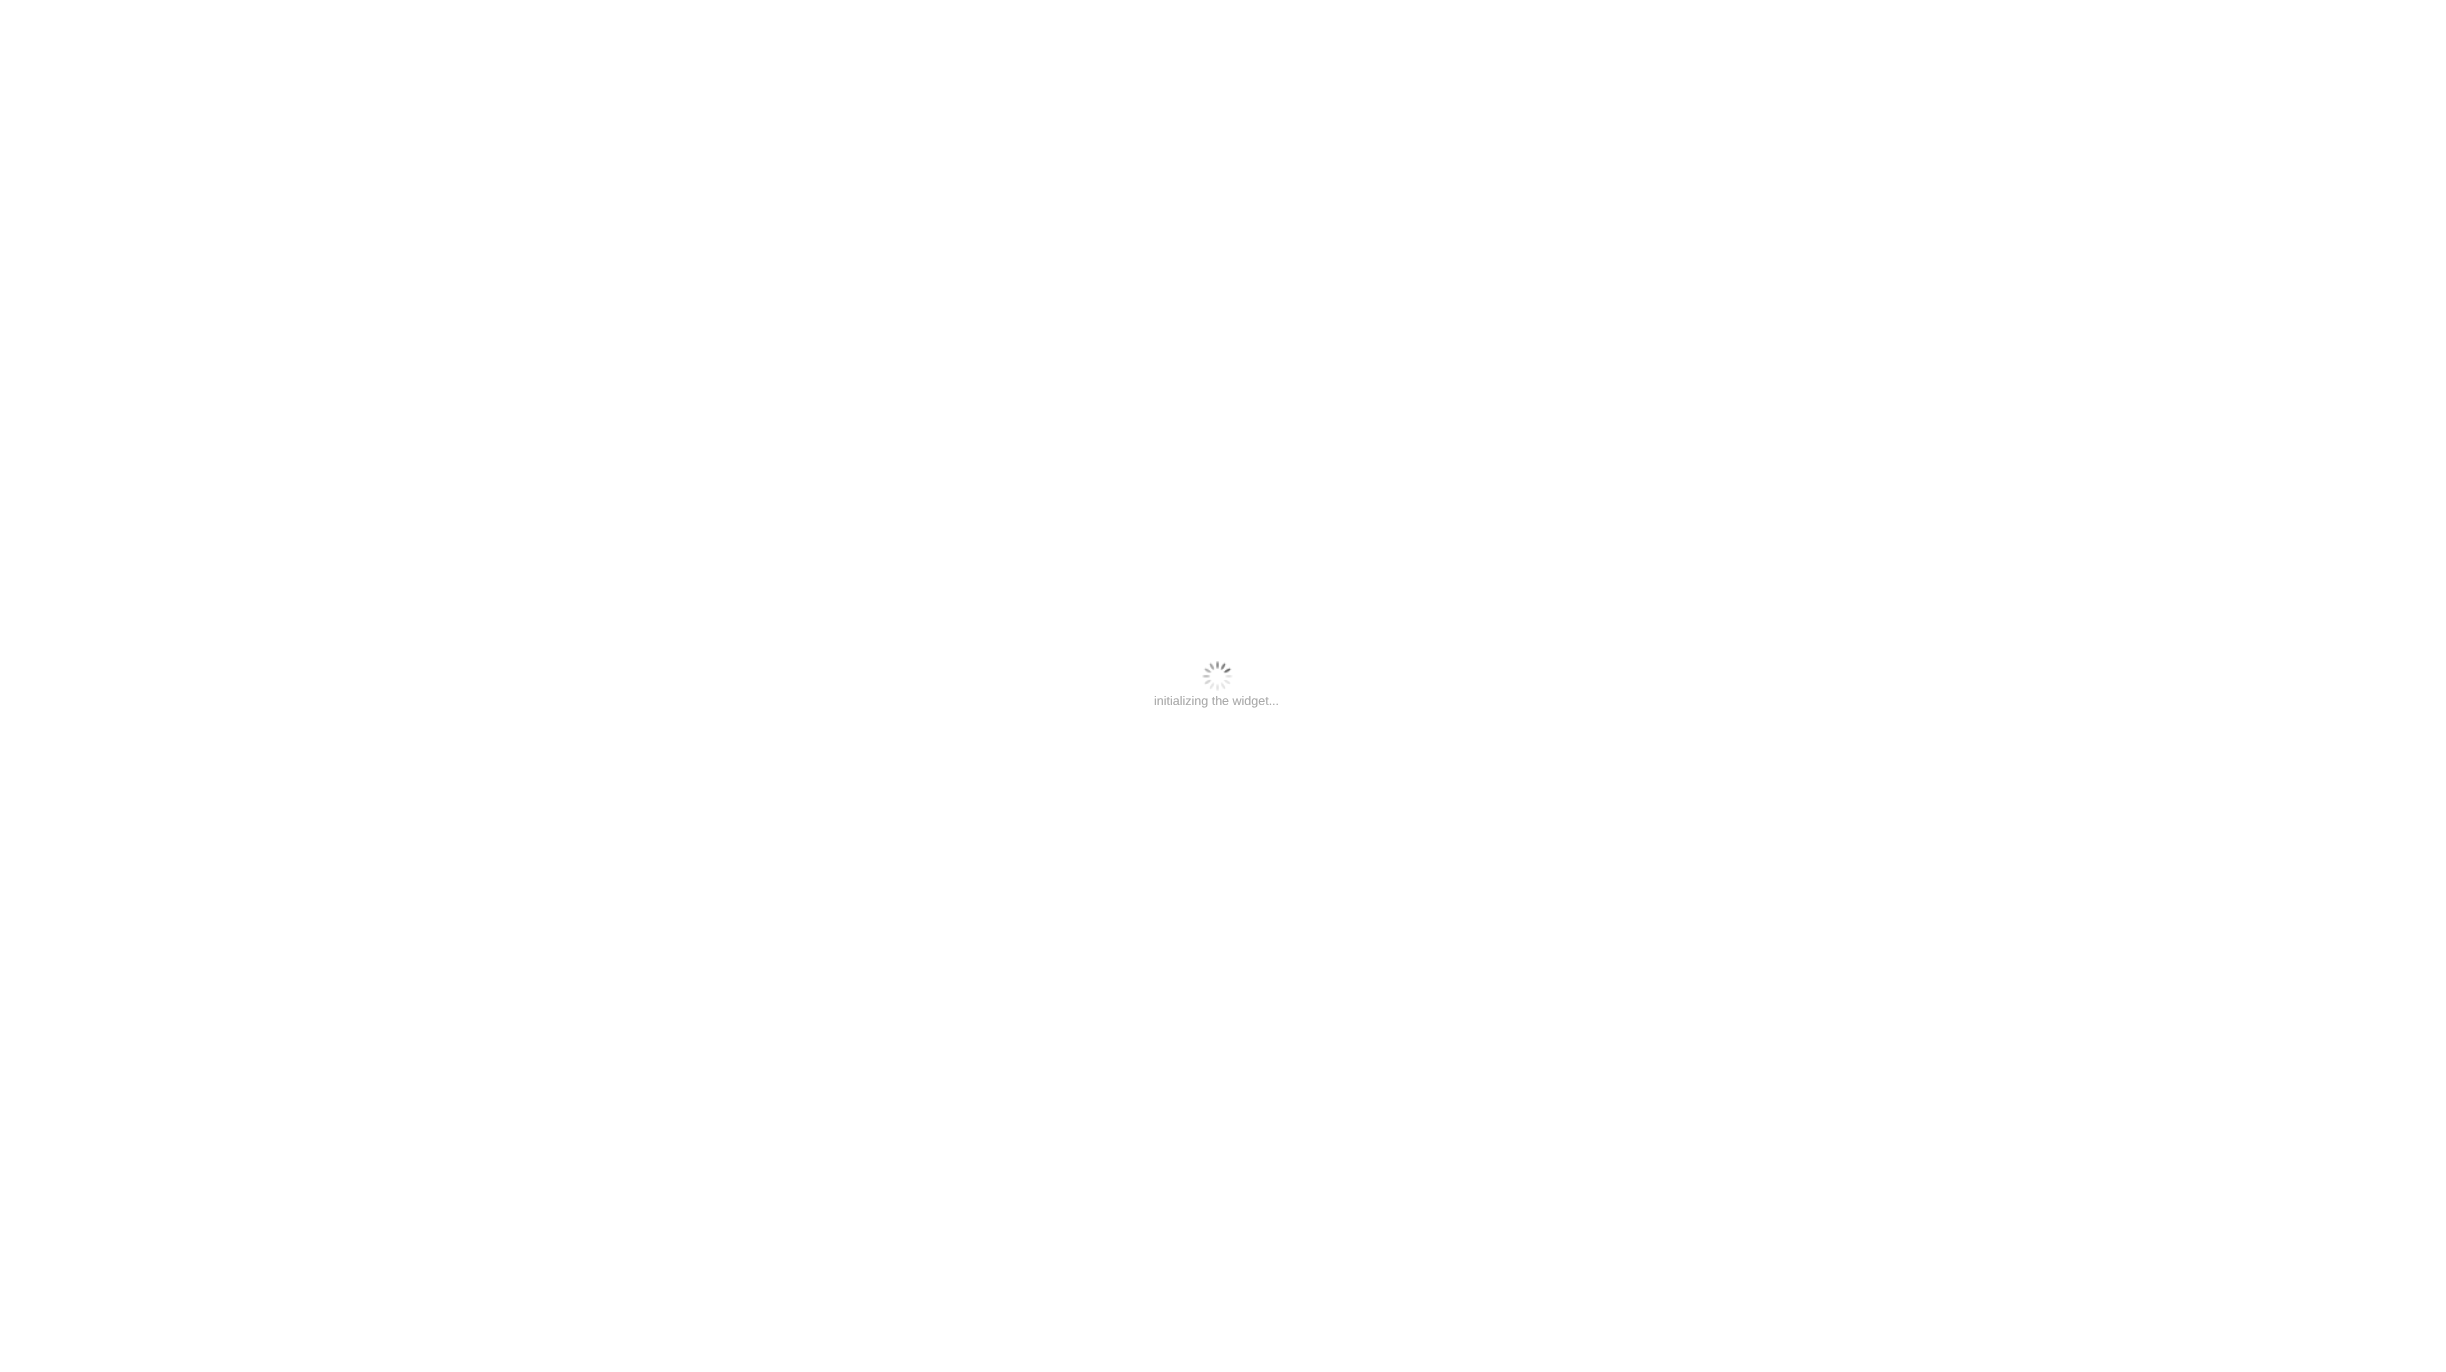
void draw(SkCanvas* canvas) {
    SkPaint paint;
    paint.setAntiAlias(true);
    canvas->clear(0xFFFFFFFF);
    canvas->drawImageRect(SkImages::DeferredFromEncodedData(SkData::MakeFromFileName("img1.png")), SkRect::MakeXYWH(1202, 661, 31, 30), SkSamplingOptions());
    SkFont font1(fontMgr->matchFamilyStyle("Liberation Sans", SkFontStyle::Normal()), 12.5f);
    font1.setSubpixel(true);
    paint.setColor(0xFFAAAAAA);
    canvas->drawString("initializing the widget...", 1154, 705, font1, paint);
}
